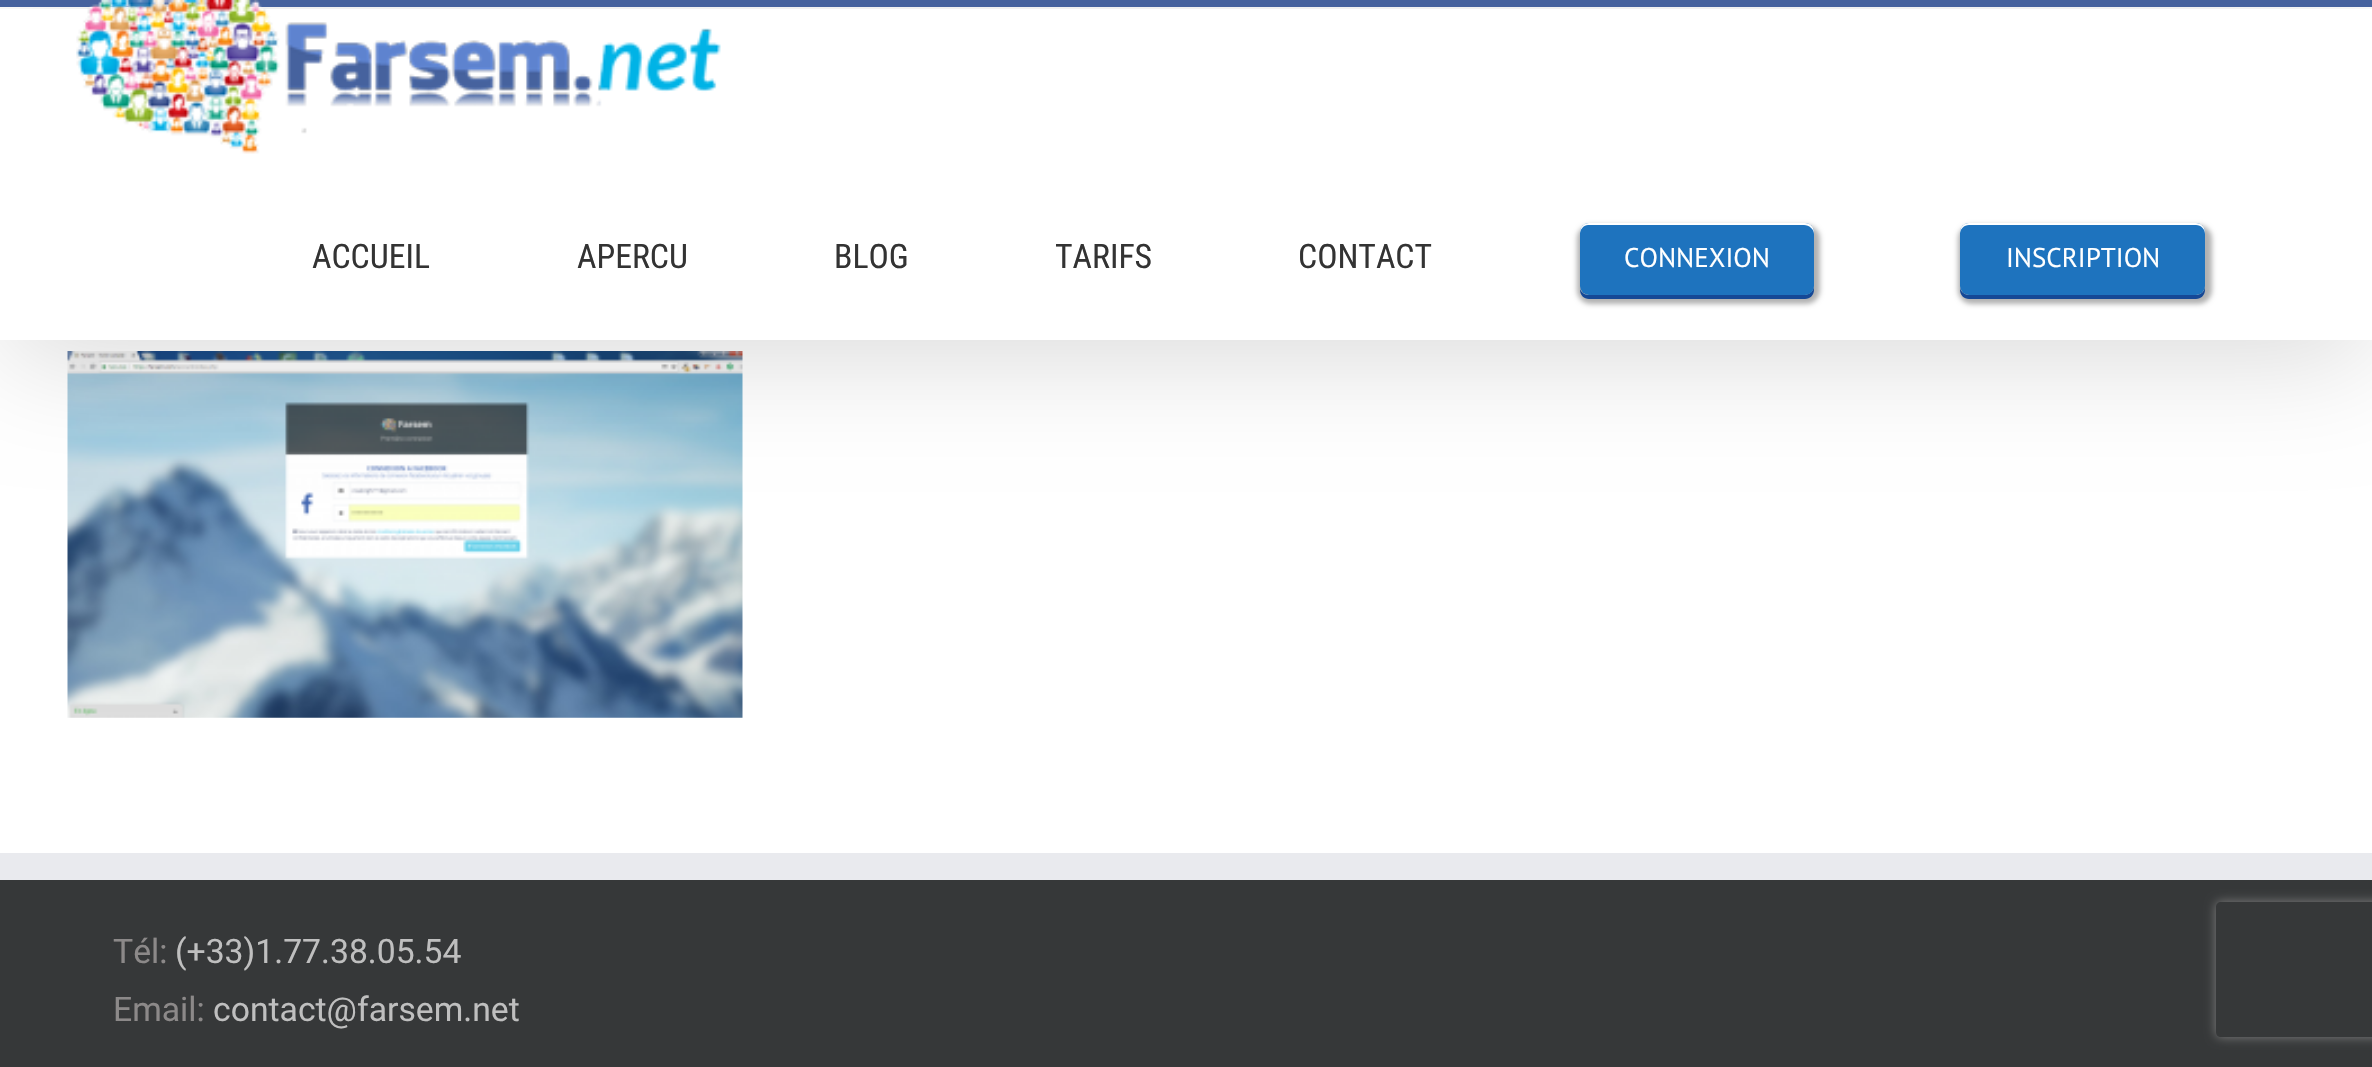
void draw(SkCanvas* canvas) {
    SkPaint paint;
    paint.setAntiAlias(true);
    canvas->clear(0xFFFFFFFF);
    canvas->drawImageRect(SkImages::DeferredFromEncodedData(SkData::MakeFromFileName("img2.png")), SkRect::MakeXYWH(67, 351, 676, 367), SkSamplingOptions());
    paint.setColor(0x24000000);
    paint.setMaskFilter(SkMaskFilter::MakeBlur(kNormal_SkBlurStyle, 56));
    canvas->drawRect(SkRect::MakeXYWH(5, 27, 2364, 331), paint);
    paint.setMaskFilter(nullptr);
    paint.setColor(0xFF46629E);
    canvas->drawRect(SkRect::MakeXYWH(0, 0, 2372, 7), paint);
    paint.setColor(0xFFFFFFFF);
    canvas->drawRect(SkRect::MakeXYWH(0, 9, 2372, 331), paint);
    canvas->drawImageRect(SkImages::DeferredFromEncodedData(SkData::MakeFromFileName("img1.png")), SkRect::MakeXYWH(76, 0, 645, 154), SkSamplingOptions());
    SkFont font1(fontMgr->matchFamilyStyle("Roboto Condensed", SkFontStyle::Normal()), 33.75f);
    font1.setSubpixel(true);
    paint.setColor(0xFF333333);
    canvas->drawString("ACCUEIL", 312, 268, font1, paint);
    canvas->drawString("APERCU", 577, 268, font1, paint);
    canvas->drawString("BLOG", 834, 268, font1, paint);
    canvas->drawString("TARIFS", 1055, 268, font1, paint);
    canvas->drawString("CONTACT", 1298, 268, font1, paint);
    paint.setColor(0x4D000000);
    paint.setMaskFilter(SkMaskFilter::MakeBlur(kNormal_SkBlurStyle, 2.5f));
    canvas->drawRoundRect(SkRect::MakeXYWH(1577, 225, 243, 79), 14, 14, paint);
    paint.setMaskFilter(nullptr);
    paint.setColor(0xFF154896);
    canvas->drawPath(SkPathBuilder().moveTo(1580, 289).lineTo(1580, 290).cubicTo(1580, 295, 1584, 299, 1589, 299).lineTo(1805, 299).cubicTo(1810, 299, 1814, 295, 1814, 290).lineTo(1814, 236).lineTo(1814, 233).lineTo(1814, 286).cubicTo(1814, 291, 1809, 295, 1804, 295).lineTo(1588, 295).cubicTo(1585, 295, 1581, 292, 1580, 289).close().detach(), paint);
    paint.setColor(0xFF1E73BE);
    canvas->drawRoundRect(SkRect::MakeXYWH(1580, 223, 234, 72), 9, 9, paint);
    paint.setColor(0xFFFFFFFF);
    canvas->drawPath(SkPathBuilder().moveTo(1588, 225).lineTo(1804, 225).cubicTo(1809, 225, 1814, 229, 1814, 234).lineTo(1814, 232).cubicTo(1814, 227, 1810, 223, 1805, 223).lineTo(1589, 223).cubicTo(1584, 223, 1580, 227, 1580, 232).lineTo(1580, 234).cubicTo(1580, 229, 1584, 225, 1588, 225).close().detach(), paint);
    SkFont font2(fontMgr->matchFamilyStyle("PT Sans", SkFontStyle::Normal()), 27);
    font2.setSubpixel(true);
    canvas->drawString("CONNEXION", 1624, 267, font2, paint);
    paint.setColor(0x4D000000);
    paint.setMaskFilter(SkMaskFilter::MakeBlur(kNormal_SkBlurStyle, 2.5f));
    canvas->drawRoundRect(SkRect::MakeXYWH(1958, 225, 254, 79), 14, 14, paint);
    paint.setMaskFilter(nullptr);
    paint.setColor(0xFF154896);
    canvas->drawPath(SkPathBuilder().moveTo(1960, 288).lineTo(1960, 290).cubicTo(1960, 295, 1964, 299, 1969, 299).lineTo(2196, 299).cubicTo(2201, 299, 2205, 295, 2205, 290).lineTo(2205, 286).cubicTo(2205, 291, 2201, 295, 2196, 295).lineTo(1969, 295).cubicTo(1965, 295, 1961, 292, 1960, 288).close().detach(), paint);
    paint.setColor(0xFF1E73BE);
    canvas->drawRoundRect(SkRect::MakeXYWH(1960, 223, 245, 72), 9, 9, paint);
    paint.setColor(0xFFFFFFFF);
    canvas->drawPath(SkPathBuilder().moveTo(1969, 225).lineTo(2196, 225).cubicTo(2201, 225, 2205, 229, 2205, 234).lineTo(2205, 232).cubicTo(2205, 227, 2201, 223, 2196, 223).lineTo(1969, 223).cubicTo(1964, 223, 1960, 227, 1960, 232).lineTo(1960, 234).cubicTo(1960, 229, 1964, 225, 1969, 225).close().detach(), paint);
    canvas->drawString("INSCRIPTION", 2006, 267, font2, paint);
    paint.setColor(0xFF363839);
    canvas->drawRect(SkRect::MakeXYWH(0, 880, 2372, 187), paint);
    paint.setColor(0xFFE9EAEE);
    canvas->drawRect(SkRect::MakeXYWH(0, 853, 2372, 27), paint);
    SkFont font3(fontMgr->matchFamilyStyle("Roboto", SkFontStyle::Normal()), 33.75f);
    font3.setSubpixel(true);
    paint.setColor(0xFF8C8989);
    canvas->drawString("Tél:", 113, 963, font3, paint);
    paint.setColor(0xFFBFBFBF);
    canvas->drawString("(+33)1.77.38.05.54", 175, 963, font3, paint);
    paint.setColor(0xFF8C8989);
    canvas->drawString("Email:", 113, 1021, font3, paint);
    paint.setColor(0xFFBFBFBF);
    canvas->drawString("contact@farsem.net", 213, 1021, font3, paint);
    canvas->save();
    canvas->clipPath(SkPathBuilder(SkPathFillType::kEvenOdd).moveTo(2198, 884).lineTo(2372, 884).lineTo(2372, 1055).lineTo(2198, 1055).close().moveTo(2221, 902).lineTo(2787, 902).cubicTo(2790, 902, 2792, 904, 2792, 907).lineTo(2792, 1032).cubicTo(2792, 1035, 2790, 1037, 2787, 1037).lineTo(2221, 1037).cubicTo(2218, 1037, 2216, 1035, 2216, 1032).lineTo(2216, 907).cubicTo(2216, 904, 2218, 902, 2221, 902).close().detach(), true);
    paint.setColor(0xFF808080);
    paint.setMaskFilter(SkMaskFilter::MakeBlur(kNormal_SkBlurStyle, 5.5f));
    canvas->drawRoundRect(SkRect::MakeXYWH(2216, 902, 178, 135), 5, 5, paint);
    paint.setMaskFilter(nullptr);
    canvas->restore();
}
